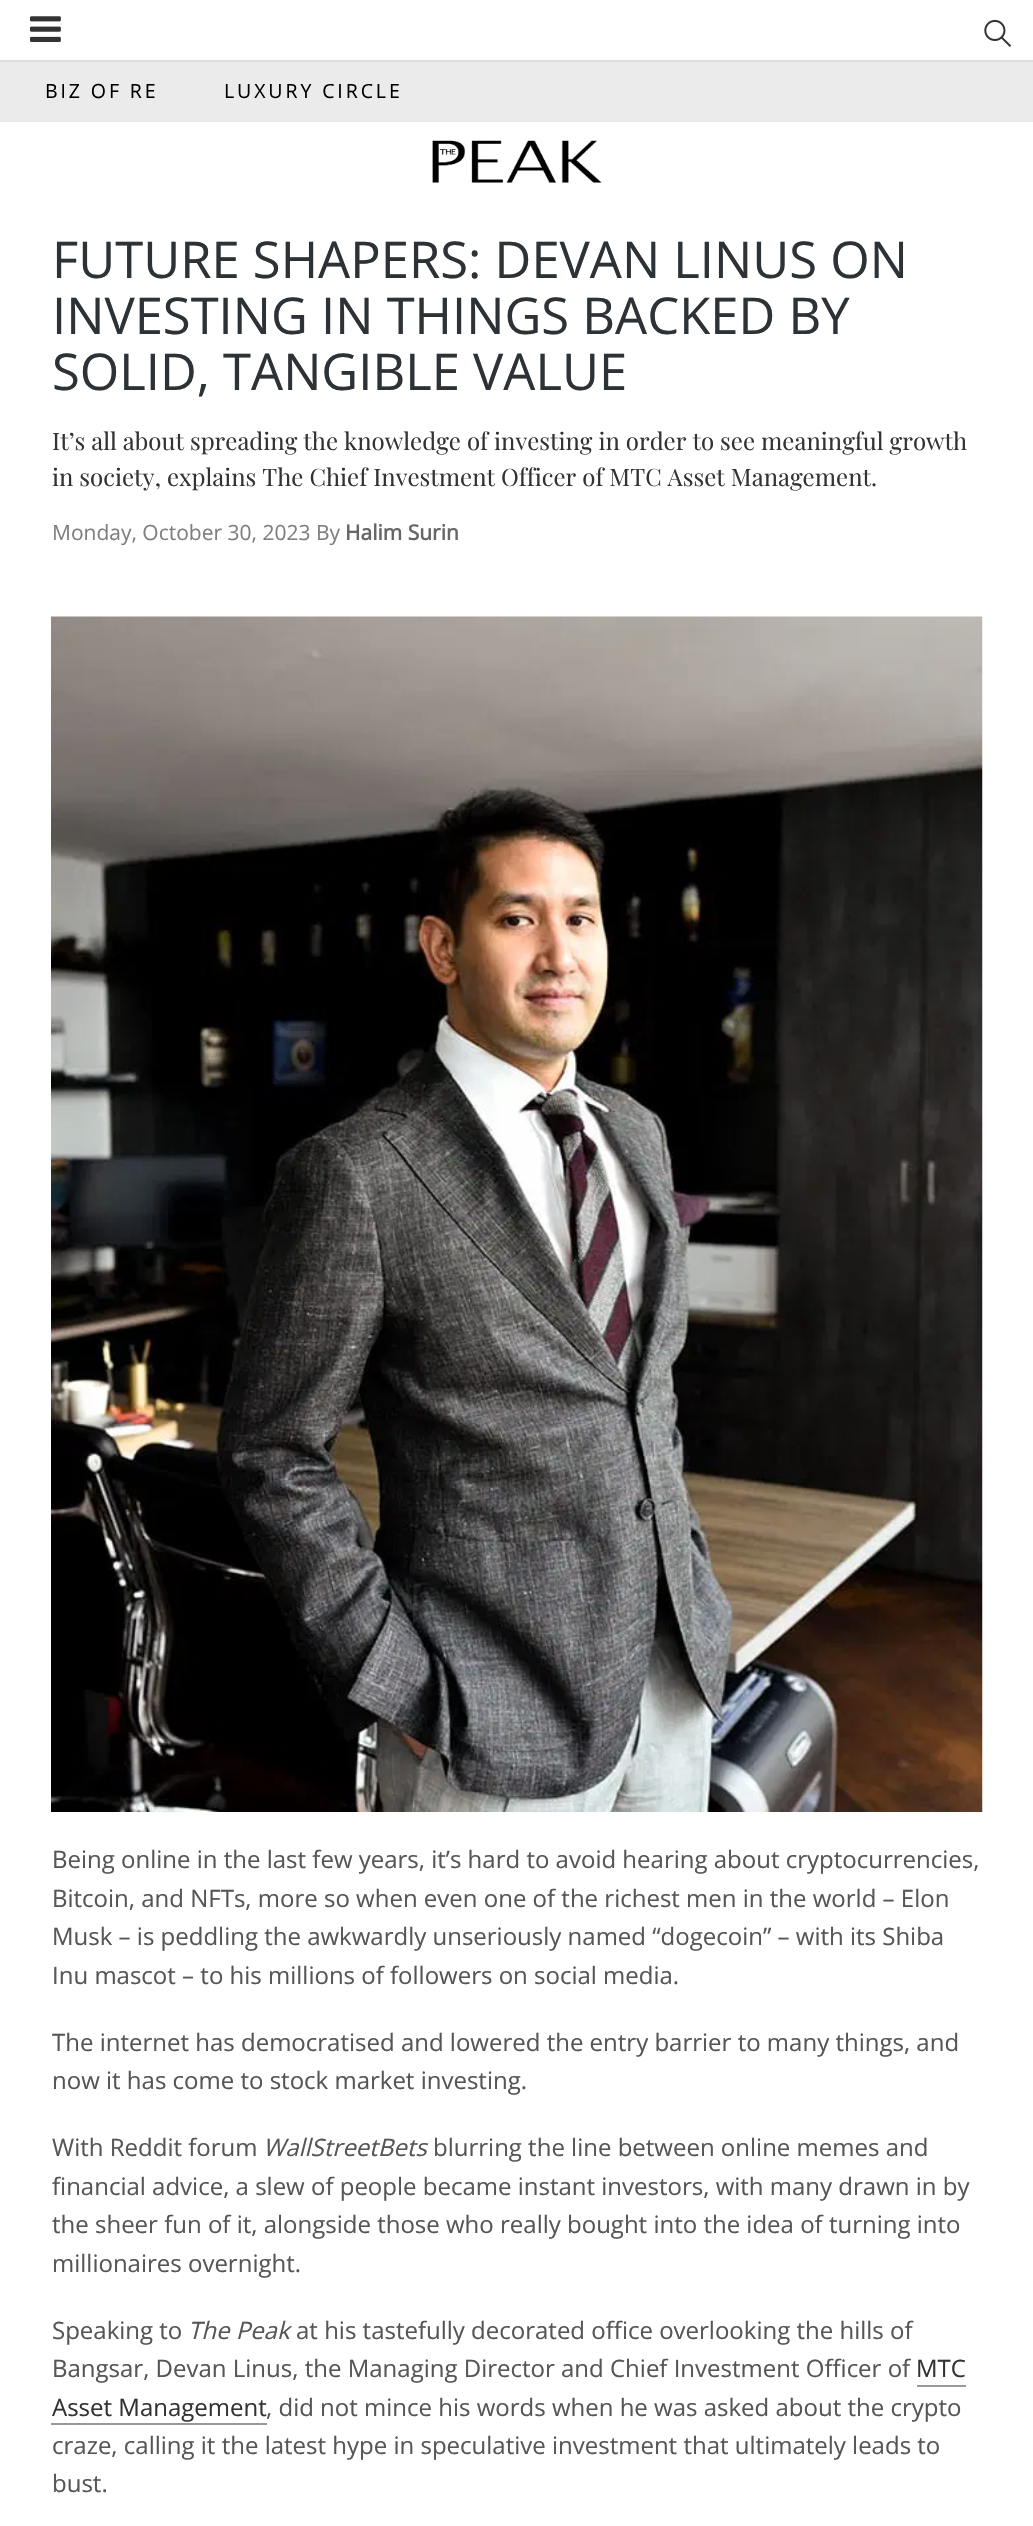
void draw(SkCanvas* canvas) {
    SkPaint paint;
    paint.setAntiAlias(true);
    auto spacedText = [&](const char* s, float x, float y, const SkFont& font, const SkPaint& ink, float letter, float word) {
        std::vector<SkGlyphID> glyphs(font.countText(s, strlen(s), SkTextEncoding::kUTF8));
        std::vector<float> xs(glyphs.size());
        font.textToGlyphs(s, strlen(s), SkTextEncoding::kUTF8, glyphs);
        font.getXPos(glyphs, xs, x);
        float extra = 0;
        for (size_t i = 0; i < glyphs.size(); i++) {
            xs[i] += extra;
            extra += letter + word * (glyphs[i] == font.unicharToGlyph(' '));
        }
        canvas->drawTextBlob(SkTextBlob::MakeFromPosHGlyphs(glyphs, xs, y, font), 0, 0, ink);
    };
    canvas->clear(0xFFFFFFFF);
    paint.setColor(0xFFDDDDDD);
    canvas->drawRect(SkRect::MakeXYWH(0, 60, 1033, 2), paint);
    canvas->drawImageRect(SkImages::DeferredFromEncodedData(SkData::MakeFromFileName("img1.png")), SkRect::MakeXYWH(30, 16, 31, 26), SkSamplingOptions());
    canvas->drawImageRect(SkImages::DeferredFromEncodedData(SkData::MakeFromFileName("img2.png")), SkRect::MakeXYWH(984, 19, 28, 28), SkSamplingOptions());
    paint.setColor(0xFFEBEBEB);
    canvas->drawRect(SkRect::MakeXYWH(0, 62, 1033, 60), paint);
    SkFont font1(fontMgr->matchFamilyStyle("Open Sans", SkFontStyle::Normal()), 19.5f);
    font1.setSubpixel(true);
    paint.setColor(0xFF000000);
    spacedText("BIZ OF RE", 45, 98, font1, paint, 2.9f, 0);
    spacedText("LUXURY CIRCLE", 224, 98, font1, paint, 2.9f, 0);
    canvas->drawImageRect(SkImages::DeferredFromEncodedData(SkData::MakeFromFileName("img3.png")), SkRect::MakeXYWH(432, 140, 170, 43), SkSamplingOptions());
    SkFont font2(fontMgr->matchFamilyStyle("Open Sans", SkFontStyle::Normal()), 50.75f);
    font2.setSubpixel(true);
    paint.setColor(0xFF2D3237);
    canvas->drawString("FUTURE SHAPERS: DEVAN LINUS ON", 52, 278, font2, paint);
    canvas->drawString("INVESTING IN THINGS BACKED BY", 52, 334, font2, paint);
    canvas->drawString("SOLID, TANGIBLE VALUE", 52, 390, font2, paint);
    SkFont font3(fontMgr->matchFamilyStyle("Playfair Display", SkFontStyle::Normal()), 24);
    font3.setSubpixel(true);
    paint.setColor(0xFF333333);
    canvas->drawString("It’s all about spreading the knowledge of investing in order to see meaningful growth", 52, 450, font3, paint);
    canvas->drawString("in society, explains The Chief Investment Officer of MTC Asset Management.", 52, 486, font3, paint);
    SkFont font4(fontMgr->matchFamilyStyle("Open Sans", SkFontStyle::Normal()), 21);
    font4.setSubpixel(true);
    paint.setColor(0xFF807F7F);
    canvas->drawString("Monday, October 30, 2023 By", 52, 540, font4, paint);
    SkFont font5(fontMgr->matchFamilyStyle("Open Sans", SkFontStyle::Bold()), 21);
    font5.setSubpixel(true);
    paint.setColor(0xFF666666);
    canvas->drawString("Halim Surin", 345, 540, font5, paint);
    canvas->drawImageRect(SkImages::DeferredFromEncodedData(SkData::MakeFromFileName("img4.png")), SkRect::MakeXYWH(51, 616, 932, 1196), SkSamplingOptions());
    SkFont font6(fontMgr->matchFamilyStyle("Open Sans", SkFontStyle::Normal()), 24);
    font6.setSubpixel(true);
    paint.setColor(0xFF575555);
    canvas->drawString("Being online in the last few years, it’s hard to avoid hearing about cryptocurrencies,", 52, 1868, font6, paint);
    canvas->drawString("Bitcoin, and NFTs, more so when even one of the richest men in the world – Elon", 52, 1907, font6, paint);
    canvas->drawString("Musk – is peddling the awkwardly unseriously named “dogecoin” – with its Shiba", 52, 1945, font6, paint);
    canvas->drawString("Inu mascot – to his millions of followers on social media.", 52, 1984, font6, paint);
    canvas->drawString("The internet has democratised and lowered the entry barrier to many things, and", 52, 2051, font6, paint);
    canvas->drawString("now it has come to stock market investing.", 52, 2089, font6, paint);
    canvas->drawString("With Reddit forum", 52, 2156, font6, paint);
    SkFont font7(fontMgr->matchFamilyStyle("Open Sans", SkFontStyle::Italic()), 24);
    font7.setSubpixel(true);
    canvas->drawString("WallStreetBets", 263, 2156, font7, paint);
    canvas->drawString("blurring the line between online memes and", 433, 2156, font6, paint);
    canvas->drawString("financial advice, a slew of people became instant investors, with many drawn in by", 52, 2195, font6, paint);
    canvas->drawString("the sheer fun of it, alongside those who really bought into the idea of turning into", 52, 2233, font6, paint);
    canvas->drawString("millionaires overnight.", 52, 2272, font6, paint);
    canvas->drawString("Speaking to", 52, 2339, font6, paint);
    canvas->drawString("The Peak", 188, 2339, font7, paint);
    canvas->drawString("at his tastefully decorated office overlooking the hills of", 296, 2339, font6, paint);
    canvas->drawString("Bangsar, Devan Linus, the Managing Director and Chief Investment Officer of", 52, 2377, font6, paint);
    paint.setColor(0xFF333333);
    canvas->drawString("MTC", 916, 2377, font6, paint);
    paint.setColor(0xFF999999);
    canvas->drawRect(SkRect::MakeXYWH(917, 2385, 49, 2), paint);
    paint.setColor(0xFF333333);
    canvas->drawString("Asset Management", 52, 2416, font6, paint);
    paint.setColor(0xFF999999);
    canvas->drawRect(SkRect::MakeXYWH(51, 2423, 216, 2), paint);
    paint.setColor(0xFF575555);
    canvas->drawString(", did not mince his words when he was asked about the crypto", 266, 2416, font6, paint);
    canvas->drawString("craze, calling it the latest hype in speculative investment that ultimately leads to", 52, 2454, font6, paint);
    canvas->drawString("bust.", 52, 2492, font6, paint);
}
